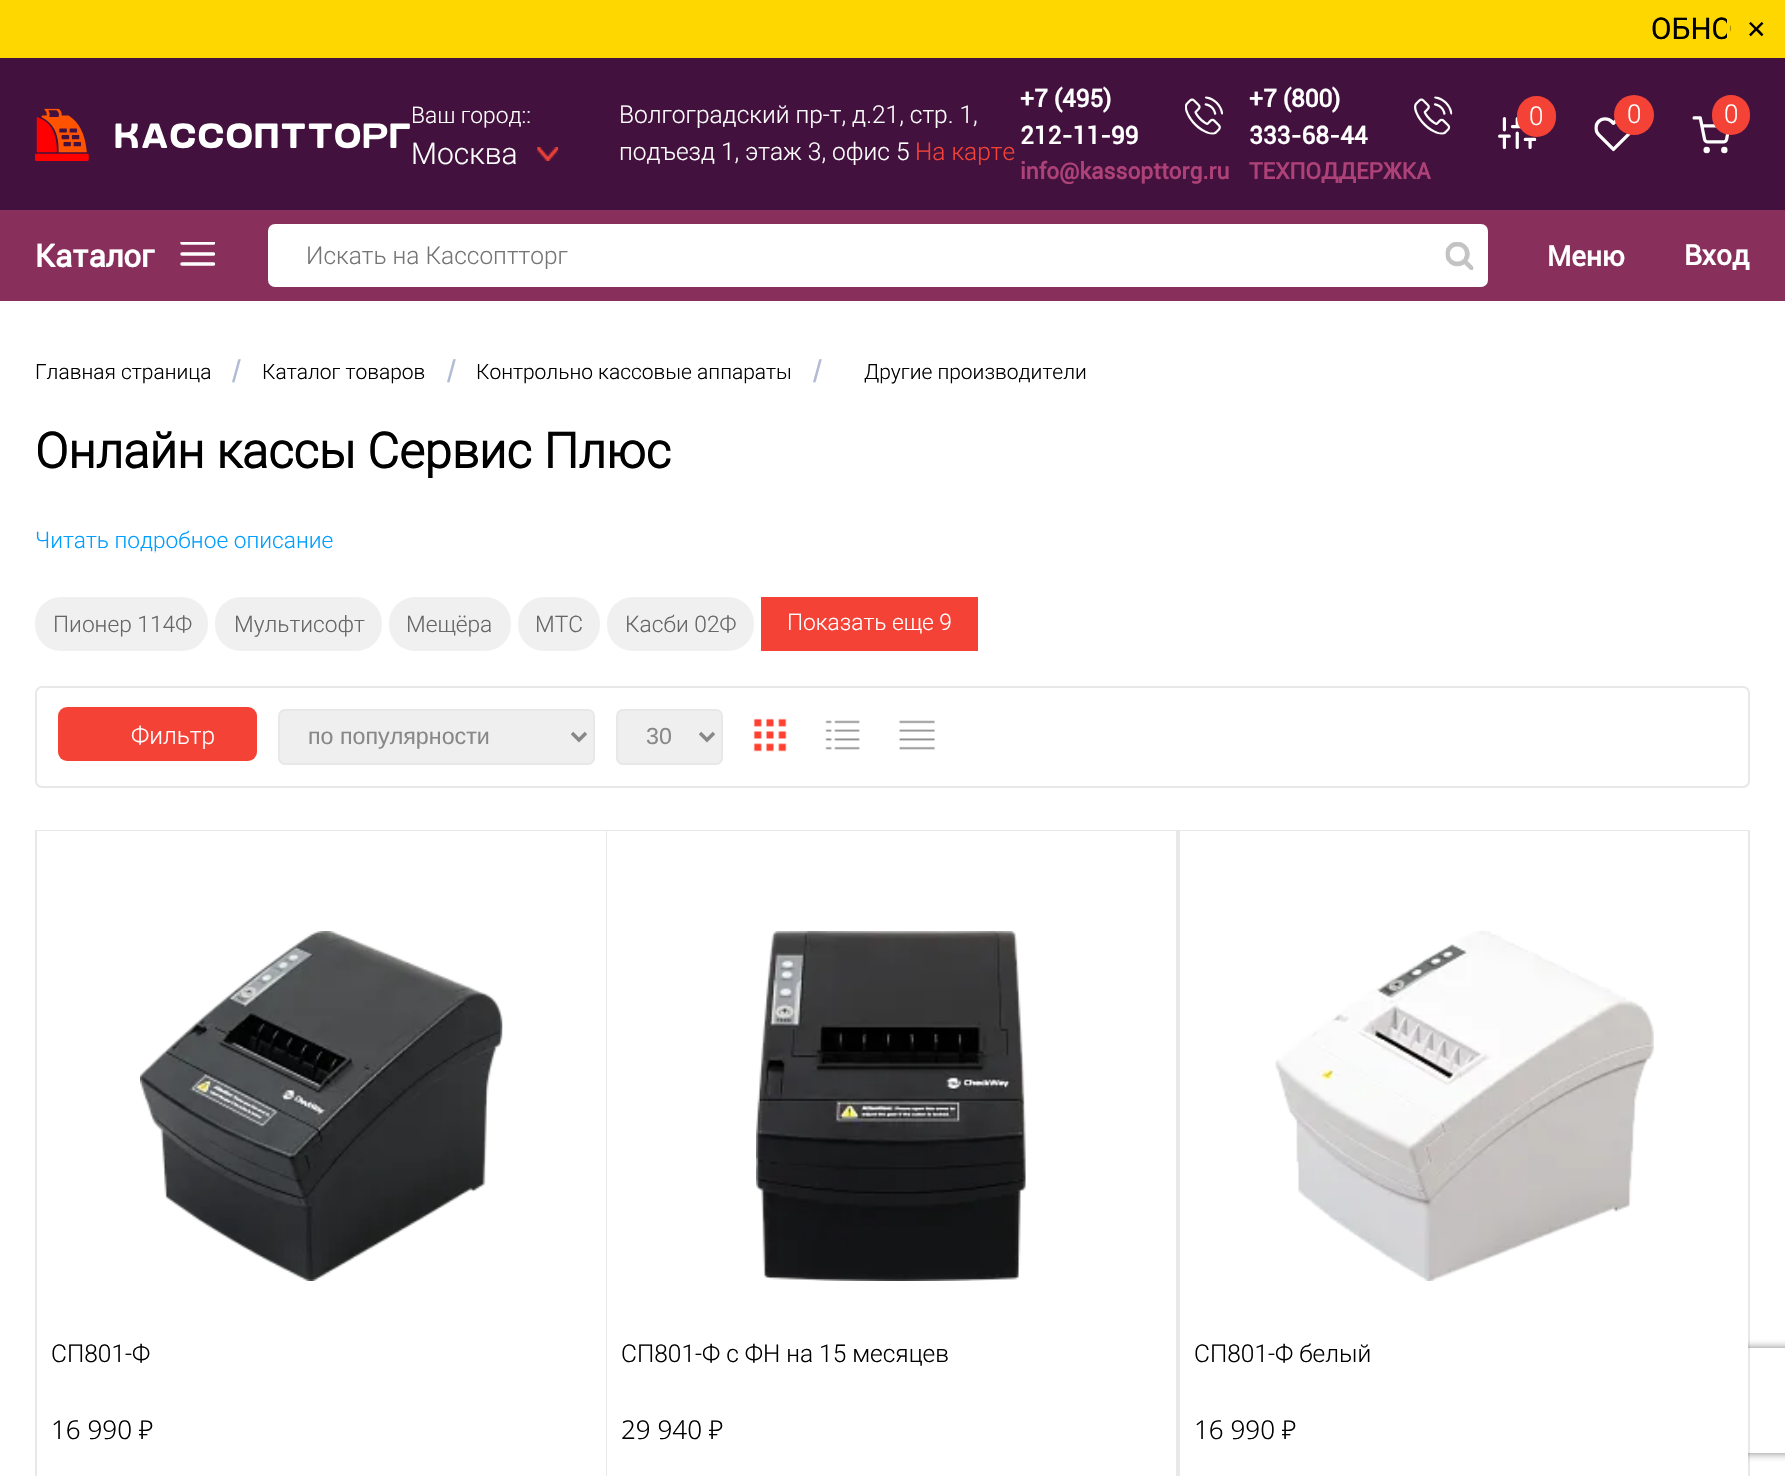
void draw(SkCanvas* canvas) {
    SkPaint paint;
    paint.setAntiAlias(true);
    canvas->clear(0xFFFFFFFF);
    paint.setColor(0xFFFFD700);
    canvas->drawRect(SkRect::MakeXYWH(0, 0, 1785, 58), paint);
    SkFont font1(fontMgr->matchFamilyStyle("Roboto", SkFontStyle::Normal()), 30);
    font1.setSubpixel(true);
    paint.setColor(0xFF000000);
    canvas->drawString("ОБНО", 1651, 39, font1, paint);
    paint.setColor(0xFFFFD700);
    canvas->drawRect(SkRect::MakeXYWH(1727, 19, 3, 19), paint);
    SkFont font2(fontMgr->matchFamilyStyle("DejaVu Sans", SkFontStyle::Normal()), 24.5f);
    font2.setSubpixel(true);
    paint.setColor(0xFF000000);
    canvas->drawString("✕", 1746, 38, font2, paint);
    paint.setColor(0xFF42113D);
    canvas->drawRect(SkRect::MakeXYWH(0, 58, 1785, 152), paint);
    canvas->drawImageRect(SkImages::DeferredFromEncodedData(SkData::MakeFromFileName("img1.png")), SkRect::MakeXYWH(35, 108, 375, 53), SkSamplingOptions());
    SkFont font3(fontMgr->matchFamilyStyle("Roboto", SkFontStyle(300, SkFontStyle::kNormal_Width, SkFontStyle::kUpright_Slant)), 22.75f);
    font3.setSubpixel(true);
    paint.setColor(0xFFFFFFFF);
    canvas->drawString("Ваш город::", 411, 123, font3, paint);
    SkFont font4(fontMgr->matchFamilyStyle("Roboto", SkFontStyle(300, SkFontStyle::kNormal_Width, SkFontStyle::kUpright_Slant)), 30);
    font4.setSubpixel(true);
    canvas->drawString("Москва", 411, 164, font4, paint);
    canvas->drawImageRect(SkImages::DeferredFromEncodedData(SkData::MakeFromFileName("img2.png")), SkRect::MakeXYWH(537, 147, 22, 14), SkSamplingOptions());
    SkFont font5(fontMgr->matchFamilyStyle("Roboto", SkFontStyle(300, SkFontStyle::kNormal_Width, SkFontStyle::kUpright_Slant)), 24.5f);
    font5.setSubpixel(true);
    canvas->drawString("Волгоградский пр-т, д.21, стр. 1,", 619, 123, font5, paint);
    canvas->drawString("подъезд 1, этаж 3, офис 5", 619, 160, font5, paint);
    paint.setColor(0xFFF44336);
    canvas->drawString("На карте", 915, 160, font5, paint);
    SkFont font6(fontMgr->matchFamilyStyle("Roboto", SkFontStyle::Bold()), 24.5f);
    font6.setSubpixel(true);
    paint.setColor(0xFFFFFFFF);
    canvas->drawString("+7 (495)", 1020, 107, font6, paint);
    canvas->drawString("212-11-99", 1020, 144, font6, paint);
    canvas->drawImageRect(SkImages::DeferredFromEncodedData(SkData::MakeFromFileName("img3.png")), SkRect::MakeXYWH(1185, 96, 38, 39), SkSamplingOptions());
    SkFont font7(fontMgr->matchFamilyStyle("Roboto", SkFontStyle::Bold()), 22.75f);
    font7.setSubpixel(true);
    paint.setColor(0xFFAE4178);
    canvas->drawString("info@kassopttorg.ru", 1020, 179, font7, paint);
    paint.setColor(0xFFFFFFFF);
    canvas->drawString("+7 (800)", 1249, 107, font6, paint);
    canvas->drawString("333-68-44", 1249, 144, font6, paint);
    canvas->drawImageRect(SkImages::DeferredFromEncodedData(SkData::MakeFromFileName("img4.png")), SkRect::MakeXYWH(1414, 96, 39, 39), SkSamplingOptions());
    paint.setColor(0xFFAE4178);
    canvas->drawString("ТЕХПОДДЕРЖКА", 1249, 179, font7, paint);
    canvas->drawImageRect(SkImages::DeferredFromEncodedData(SkData::MakeFromFileName("img5.png")), SkRect::MakeXYWH(1498, 117, 39, 32), SkSamplingOptions());
    paint.setColor(0xFFF44336);
    canvas->drawRoundRect(SkRect::MakeXYWH(1517, 96, 39, 41), 19.5f, 19.5f, paint);
    SkFont font8(fontMgr->matchFamilyStyle("Roboto", SkFontStyle(300, SkFontStyle::kNormal_Width, SkFontStyle::kUpright_Slant)), 26);
    font8.setSubpixel(true);
    paint.setColor(0xFFFFFFFF);
    canvas->drawString("0", 1529, 125, font8, paint);
    canvas->drawImageRect(SkImages::DeferredFromEncodedData(SkData::MakeFromFileName("img6.png")), SkRect::MakeXYWH(1594, 117, 37, 35), SkSamplingOptions());
    paint.setColor(0xFFF44336);
    canvas->drawCircle(1634, 115, 20, paint);
    paint.setColor(0xFFFFFFFF);
    canvas->drawString("0", 1627, 123, font8, paint);
    canvas->drawImageRect(SkImages::DeferredFromEncodedData(SkData::MakeFromFileName("img7.png")), SkRect::MakeXYWH(1692, 116, 38, 38), SkSamplingOptions());
    paint.setColor(0xFFF44336);
    canvas->drawRoundRect(SkRect::MakeXYWH(1712, 95, 38, 40), 19, 19, paint);
    paint.setColor(0xFFFFFFFF);
    canvas->drawString("0", 1724, 123, font8, paint);
    paint.setColor(0xFF892F5C);
    canvas->drawRect(SkRect::MakeXYWH(0, 210, 1785, 91), paint);
    SkFont font9(fontMgr->matchFamilyStyle("Roboto", SkFontStyle::Bold()), 31.5f);
    font9.setSubpixel(true);
    paint.setColor(0xFFFFFFFF);
    canvas->drawString("Каталог", 35, 267, font9, paint);
    canvas->save();
    canvas->clipRect(SkRect::MakeXYWH(180, 242, 35, 24));
    paint.setStyle(SkPaint::kStroke_Style);
    paint.setStrokeWidth(3.5f);
    paint.setStrokeCap(SkPaint::kRound_Cap);
    paint.setStrokeJoin(SkPaint::kRound_Join);
    canvas->drawPath(SkPathBuilder().moveTo(182, 254).lineTo(213.5f, 254).moveTo(182, 243).lineTo(213.5f, 243).moveTo(182, 264).lineTo(213.5f, 264).detach(), paint);
    canvas->restore();
    paint.setStyle(SkPaint::kFill_Style);
    canvas->drawRoundRect(SkRect::MakeXYWH(268, 224, 1220, 63), 7, 7, paint);
    paint.setColor(0xFF757575);
    canvas->drawString("Искать на Кассоптторг", 306, 264, font5, paint);
    canvas->drawImageRect(SkImages::DeferredFromEncodedData(SkData::MakeFromFileName("img8.png")), SkRect::MakeXYWH(1445, 242, 29, 28), SkSamplingOptions());
    SkFont font10(fontMgr->matchFamilyStyle("Roboto", SkFontStyle::Bold()), 28);
    font10.setSubpixel(true);
    paint.setColor(0xFFFFFFFF);
    canvas->drawString("Меню", 1547, 266, font10, paint);
    canvas->drawString("Вход", 1684, 265, font10, paint);
    SkFont font11(fontMgr->matchFamilyStyle("Roboto", SkFontStyle(300, SkFontStyle::kNormal_Width, SkFontStyle::kUpright_Slant)), 21);
    font11.setSubpixel(true);
    paint.setColor(0xFF000000);
    canvas->drawString("Главная страница", 35, 379, font11, paint);
    SkFont font12(fontMgr->matchFamilyStyle("Liberation Sans", SkFontStyle::Normal()), 31.5f);
    font12.setSubpixel(true);
    paint.setColor(0xFFB3BCD5);
    canvas->drawString("/", 232, 382, font12, paint);
    paint.setColor(0xFF000000);
    canvas->drawString("Каталог товаров", 262, 379, font11, paint);
    paint.setColor(0xFFB3BCD5);
    canvas->drawString("/", 447, 382, font12, paint);
    paint.setColor(0xFF000000);
    canvas->drawString("Контрольно кассовые аппараты", 476, 379, font11, paint);
    paint.setColor(0xFFB3BCD5);
    canvas->drawString("/", 813, 382, font12, paint);
    paint.setColor(0xFF000000);
    canvas->drawString("Другие производители", 864, 379, font11, paint);
    SkFont font13(fontMgr->matchFamilyStyle("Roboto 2", SkFontStyle::Bold()), 49);
    font13.setSubpixel(true);
    canvas->drawString("Онлайн кассы Сервис Плюс", 35, 468, font13, paint);
    paint.setColor(0xFF009EFF);
    canvas->drawString("Читать подробное описание", 35, 548, font3, paint);
    {
        const SkColor colors[] = {0xFFFFFFFF, 0x94FFFFFF};
        const float stops[] = {0, 1};
        const SkPoint ends[] = {{893, 574}, {893, 551}};
        paint.setShader(SkGradientShader::MakeLinear(ends, colors, stops, 2, SkTileMode::kClamp));
        paint.setAlpha(255);
    }
    canvas->drawRect(SkRect::MakeXYWH(140, 551, 17, 2), paint);
    paint.setShader(nullptr);
    paint.setColor(0xFFF0F0F0);
    canvas->drawRoundRect(SkRect::MakeXYWH(35, 597, 173, 54), 26, 26, paint);
    paint.setColor(0xFF666666);
    canvas->drawString("Пионер 114Ф", 53, 632, font3, paint);
    paint.setColor(0xFFF0F0F0);
    canvas->drawRoundRect(SkRect::MakeXYWH(215, 597, 167, 54), 26, 26, paint);
    paint.setColor(0xFF666666);
    canvas->drawString("Мультисофт", 234, 632, font3, paint);
    paint.setColor(0xFFF0F0F0);
    canvas->drawRoundRect(SkRect::MakeXYWH(389, 597, 122, 54), 26, 26, paint);
    paint.setColor(0xFF666666);
    canvas->drawString("Мещёра", 406, 632, font3, paint);
    paint.setColor(0xFFF0F0F0);
    canvas->drawRoundRect(SkRect::MakeXYWH(518, 597, 82, 54), 26, 26, paint);
    paint.setColor(0xFF666666);
    canvas->drawString("МТС", 535, 632, font3, paint);
    paint.setColor(0xFFF0F0F0);
    canvas->drawRoundRect(SkRect::MakeXYWH(607, 597, 147, 54), 26, 26, paint);
    paint.setColor(0xFF666666);
    canvas->drawString("Касби 02Ф", 625, 632, font3, paint);
    paint.setColor(0xFFF44336);
    canvas->drawRect(SkRect::MakeXYWH(761, 597, 217, 54), paint);
    paint.setColor(0xFFFFFFFF);
    canvas->drawString("Показать еще 9", 787, 630, font3, paint);
    paint.setStyle(SkPaint::kStroke_Style);
    paint.setStrokeWidth(2);
    paint.setStrokeCap(SkPaint::kButt_Cap);
    paint.setStrokeJoin(SkPaint::kMiter_Join);
    paint.setColor(0xFFE7E8EA);
    canvas->drawRoundRect(SkRect::MakeXYWH(36, 687, 1713, 100), 6, 6, paint);
    paint.setStyle(SkPaint::kFill_Style);
    paint.setColor(0xFFF44336);
    canvas->drawRoundRect(SkRect::MakeXYWH(58, 707, 199, 54), 9, 9, paint);
    paint.setColor(0xFFFFFFFF);
    canvas->drawString("Фильтр", 131, 744, font5, paint);
    paint.setColor(0xFFEFEFEF);
    canvas->drawRoundRect(SkRect::MakeXYWH(279, 710, 315, 54), 6, 6, paint);
    paint.setStyle(SkPaint::kStroke_Style);
    paint.setColor(0xFFE7E8EA);
    canvas->drawRoundRect(SkRect::MakeXYWH(279, 710, 315, 54), 6, 6, paint);
    paint.setStrokeWidth(3.5f);
    paint.setColor(0xFF888888);
    canvas->drawPath(SkPathBuilder().moveTo(572, 733).lineTo(579, 740).lineTo(586, 733).detach(), paint);
    SkFont font14(fontMgr->matchFamilyStyle("Liberation Sans", SkFontStyle::Normal()), 23.25f);
    font14.setSubpixel(true);
    paint.setStyle(SkPaint::kFill_Style);
    canvas->drawString("по популярности", 308, 744, font14, paint);
    paint.setColor(0xFFEFEFEF);
    canvas->drawRoundRect(SkRect::MakeXYWH(617, 710, 105, 54), 6, 6, paint);
    paint.setStyle(SkPaint::kStroke_Style);
    paint.setStrokeWidth(2);
    paint.setColor(0xFFE7E8EA);
    canvas->drawRoundRect(SkRect::MakeXYWH(617, 710, 105, 54), 6, 6, paint);
    paint.setStrokeWidth(3.5f);
    paint.setColor(0xFF888888);
    canvas->drawPath(SkPathBuilder().moveTo(700, 733).lineTo(707, 740).lineTo(714, 733).detach(), paint);
    paint.setStyle(SkPaint::kFill_Style);
    canvas->drawString("30", 646, 744, font14, paint);
    canvas->drawImageRect(SkImages::DeferredFromEncodedData(SkData::MakeFromFileName("img9.png")), SkRect::MakeXYWH(753, 718, 34, 34), SkSamplingOptions());
    canvas->drawImageRect(SkImages::DeferredFromEncodedData(SkData::MakeFromFileName("img10.png")), SkRect::MakeXYWH(825, 720, 35, 30), SkSamplingOptions());
    canvas->drawImageRect(SkImages::DeferredFromEncodedData(SkData::MakeFromFileName("img11.png")), SkRect::MakeXYWH(899, 720, 36, 30), SkSamplingOptions());
    paint.setStyle(SkPaint::kStroke_Style);
    paint.setStrokeWidth(2);
    paint.setColor(0xFFE7E8EA);
    canvas->drawRect(SkRect::MakeXYWH(36, 831, 570, 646), paint);
    paint.setStyle(SkPaint::kFill_Style);
    paint.setColor(0xFFFFFFFF);
    canvas->drawRect(SkRect::MakeXYWH(37, 831, 569, 645), paint);
    canvas->drawImageRect(SkImages::DeferredFromEncodedData(SkData::MakeFromFileName("img12.png")), SkRect::MakeXYWH(140, 931, 363, 350), SkSamplingOptions());
    paint.setColor(0xFF000000);
    canvas->drawString("СП801-Ф", 51, 1362, font5, paint);
    SkFont font15(fontMgr->matchFamilyStyle("Noto Sans", SkFontStyle(300, SkFontStyle::kNormal_Width, SkFontStyle::kUpright_Slant)), 26);
    font15.setSubpixel(true);
    canvas->drawString("16 990 ₽", 51, 1439, font15, paint);
    paint.setColor(0xFFE7E8EA);
    canvas->drawRect(SkRect::MakeXYWH(607, 830, 571, 1), paint);
    canvas->drawRect(SkRect::MakeXYWH(1176, 830, 2, 646), paint);
    canvas->drawImageRect(SkImages::DeferredFromEncodedData(SkData::MakeFromFileName("img13.png")), SkRect::MakeXYWH(756, 931, 270, 350), SkSamplingOptions());
    paint.setColor(0xFF000000);
    canvas->drawString("СП801-Ф с ФН на 15 месяцев", 621, 1362, font5, paint);
    canvas->drawString("29 940 ₽", 621, 1439, font15, paint);
    paint.setStyle(SkPaint::kStroke_Style);
    paint.setColor(0xFFE7E8EA);
    canvas->drawRect(SkRect::MakeXYWH(1179, 831, 570, 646), paint);
    canvas->save();
    canvas->clipPath(SkPathBuilder(SkPathFillType::kEvenOdd).moveTo(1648, 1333).lineTo(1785, 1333).lineTo(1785, 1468).lineTo(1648, 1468).close().moveTo(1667, 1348).lineTo(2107, 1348).cubicTo(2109, 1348, 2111, 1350, 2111, 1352).lineTo(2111, 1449).cubicTo(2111, 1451, 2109, 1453, 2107, 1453).lineTo(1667, 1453).cubicTo(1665, 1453, 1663, 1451, 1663, 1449).lineTo(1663, 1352).cubicTo(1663, 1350, 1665, 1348, 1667, 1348).close().detach(), true);
    paint.setStyle(SkPaint::kFill_Style);
    paint.setColor(0xFF808080);
    paint.setMaskFilter(SkMaskFilter::MakeBlur(kNormal_SkBlurStyle, 4.5f));
    canvas->drawRoundRect(SkRect::MakeXYWH(1663, 1348, 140, 105), 4, 4, paint);
    paint.setMaskFilter(nullptr);
    canvas->restore();
    paint.setColor(0xFFFFFFFF);
    canvas->drawRect(SkRect::MakeXYWH(1180, 831, 568, 631), paint);
    canvas->drawImageRect(SkImages::DeferredFromEncodedData(SkData::MakeFromFileName("img14.png")), SkRect::MakeXYWH(1275, 931, 379, 350), SkSamplingOptions());
    paint.setColor(0xFF000000);
    canvas->drawString("СП801-Ф белый", 1194, 1362, font5, paint);
    canvas->drawString("16 990 ₽", 1194, 1439, font15, paint);
}
